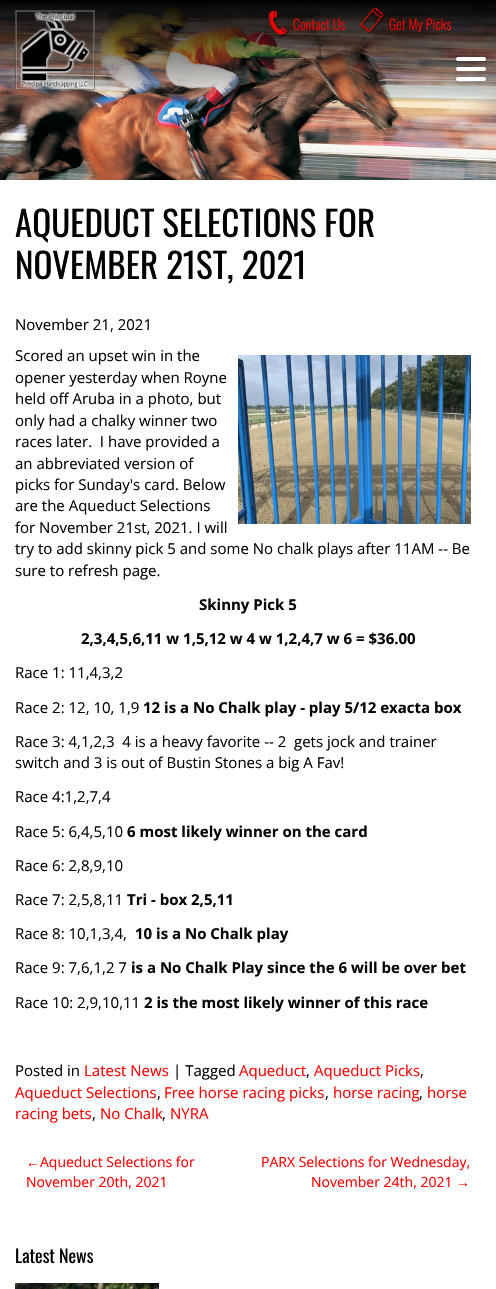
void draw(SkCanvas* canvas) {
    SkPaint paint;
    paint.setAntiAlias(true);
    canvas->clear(0xFFFFFFFF);
    canvas->drawImageRect(SkImages::DeferredFromEncodedData(SkData::MakeFromFileName("img4.png")), SkRect::MakeXYWH(0, 0, 496, 180), SkSamplingOptions());
    canvas->drawImageRect(SkImages::DeferredFromEncodedData(SkData::MakeFromFileName("img1.png")), SkRect::MakeXYWH(15, 10, 80, 81), SkSamplingOptions());
    canvas->drawImageRect(SkImages::DeferredFromEncodedData(SkData::MakeFromFileName("img2.png")), SkRect::MakeXYWH(269, 11, 20, 26), SkSamplingOptions());
    SkFont font1(fontMgr->matchFamilyStyle("Oswald", SkFontStyle(300, SkFontStyle::kNormal_Width, SkFontStyle::kUpright_Slant)), 14);
    font1.setSubpixel(true);
    paint.setColor(0xFFFC0303);
    canvas->drawString("Contact Us", 293, 30, font1, paint);
    canvas->drawImageRect(SkImages::DeferredFromEncodedData(SkData::MakeFromFileName("img3.png")), SkRect::MakeXYWH(359, 8, 26, 26), SkSamplingOptions());
    canvas->drawString("Get My Picks", 389, 30, font1, paint);
    SkFont font2(fontMgr->matchFamilyStyle("Oswald", SkFontStyle::Normal()), 35);
    font2.setSubpixel(true);
    paint.setColor(0xFF000000);
    canvas->drawString("AQUEDUCT SELECTIONS FOR", 15, 237, font2, paint);
    canvas->drawString("NOVEMBER 21ST, 2021", 15, 279, font2, paint);
    SkFont font3(fontMgr->matchFamilyStyle("Open Sans", SkFontStyle::Normal()), 15);
    font3.setSubpixel(true);
    paint.setColor(0xFF060606);
    canvas->drawString("November 21, 2021", 15, 330, font3, paint);
    canvas->drawString("Scored an upset win in the", 15, 361, font3, paint);
    canvas->drawString("opener yesterday when Royne", 15, 383, font3, paint);
    canvas->drawString("held off Aruba in a photo, but", 15, 404, font3, paint);
    canvas->drawString("only had a chalky winner two", 15, 426, font3, paint);
    canvas->drawString("races later.  I have provided a", 15, 447, font3, paint);
    canvas->drawString("an abbreviated version of", 15, 469, font3, paint);
    canvas->drawString("picks for Sunday's card. Below", 15, 490, font3, paint);
    canvas->drawString("are the Aqueduct Selections", 15, 511, font3, paint);
    canvas->drawString("for November 21st, 2021. I will", 15, 533, font3, paint);
    canvas->drawString("try to add skinny pick 5 and some No chalk plays after 11AM -- Be", 15, 554, font3, paint);
    canvas->drawString("sure to refresh page.", 15, 576, font3, paint);
    SkFont font4(fontMgr->matchFamilyStyle("Open Sans", SkFontStyle::Bold()), 15);
    font4.setSubpixel(true);
    canvas->drawString("Skinny Pick 5", 199, 610, font4, paint);
    canvas->drawString("2,3,4,5,6,11 w 1,5,12 w 4 w 1,2,4,7 w 6 = $36.00", 81, 644, font4, paint);
    canvas->drawString("Race 1: 11,4,3,2", 15, 678, font3, paint);
    canvas->drawString("Race 2: 12, 10, 1,9", 15, 713, font3, paint);
    canvas->drawString("12 is a No Chalk play - play 5/12 exacta box", 143, 713, font4, paint);
    canvas->drawString("Race 3: 4,1,2,3  4 is a heavy favorite -- 2  gets jock and trainer", 15, 747, font3, paint);
    canvas->drawString("switch and 3 is out of Bustin Stones a big A Fav!", 15, 768, font3, paint);
    canvas->drawString("Race 4:1,2,7,4", 15, 802, font3, paint);
    canvas->drawString("Race 5: 6,4,5,10", 15, 837, font3, paint);
    canvas->drawString("6 most likely winner on the card", 127, 837, font4, paint);
    canvas->drawString("Race 6: 2,8,9,10", 15, 871, font3, paint);
    canvas->drawString("Race 7: 2,5,8,11", 15, 905, font3, paint);
    canvas->drawString("Tri - box 2,5,11", 127, 905, font4, paint);
    canvas->drawString("Race 8: 10,1,3,4,", 15, 939, font3, paint);
    canvas->drawString("10 is a No Chalk play", 135, 939, font4, paint);
    canvas->drawString("Race 9: 7,6,1,2 7", 15, 973, font3, paint);
    canvas->drawString("is a No Chalk Play since the 6 will be over bet", 131, 973, font4, paint);
    canvas->drawString("Race 10: 2,9,10,11", 15, 1008, font3, paint);
    canvas->drawString("2 is the most likely winner of this race", 144, 1008, font4, paint);
    canvas->drawImageRect(SkImages::DeferredFromEncodedData(SkData::MakeFromFileName("img5.png")), SkRect::MakeXYWH(238, 355, 233, 169), SkSamplingOptions());
    canvas->drawString("Posted in", 15, 1076, font3, paint);
    paint.setColor(0xFFFC0303);
    canvas->drawString("Latest News", 84, 1076, font3, paint);
    paint.setColor(0xFF060606);
    canvas->drawString("| Tagged", 173, 1076, font3, paint);
    paint.setColor(0xFFFC0303);
    canvas->drawString("Aqueduct", 239, 1076, font3, paint);
    paint.setColor(0xFF060606);
    canvas->drawString(",", 306, 1076, font3, paint);
    paint.setColor(0xFFFC0303);
    canvas->drawString("Aqueduct Picks", 314, 1076, font3, paint);
    paint.setColor(0xFF060606);
    canvas->drawString(",", 420, 1076, font3, paint);
    paint.setColor(0xFFFC0303);
    canvas->drawString("Aqueduct Selections", 15, 1098, font3, paint);
    paint.setColor(0xFF060606);
    canvas->drawString(",", 157, 1098, font3, paint);
    paint.setColor(0xFFFC0303);
    canvas->drawString("Free horse racing picks", 164, 1098, font3, paint);
    paint.setColor(0xFF060606);
    canvas->drawString(",", 325, 1098, font3, paint);
    paint.setColor(0xFFFC0303);
    canvas->drawString("horse racing", 333, 1098, font3, paint);
    paint.setColor(0xFF060606);
    canvas->drawString(",", 419, 1098, font3, paint);
    paint.setColor(0xFFFC0303);
    canvas->drawString("horse", 427, 1098, font3, paint);
    canvas->drawString("racing bets", 15, 1119, font3, paint);
    paint.setColor(0xFF060606);
    canvas->drawString(",", 92, 1119, font3, paint);
    paint.setColor(0xFFFC0303);
    canvas->drawString("No Chalk", 100, 1119, font3, paint);
    paint.setColor(0xFF060606);
    canvas->drawString(",", 162, 1119, font3, paint);
    paint.setColor(0xFFFC0303);
    canvas->drawString("NYRA", 170, 1119, font3, paint);
    SkFont font5(fontMgr->matchFamilyStyle("Liberation Sans", SkFontStyle::Normal()), 14);
    font5.setSubpixel(true);
    canvas->drawString("←", 26, 1167, font5, paint);
    SkFont font6(fontMgr->matchFamilyStyle("Open Sans", SkFontStyle::Normal()), 14);
    font6.setSubpixel(true);
    canvas->drawString("Aqueduct Selections for", 40, 1167, font6, paint);
    canvas->drawString("November 20th, 2021", 26, 1187, font6, paint);
    canvas->drawString("PARX Selections for Wednesday,", 261, 1167, font6, paint);
    canvas->drawString("November 24th, 2021", 311, 1187, font6, paint);
    canvas->drawString("→", 456, 1187, font5, paint);
    SkFont font7(fontMgr->matchFamilyStyle("Oswald", SkFontStyle::Normal()), 18);
    font7.setSubpixel(true);
    paint.setColor(0xFF000000);
    canvas->drawString("Latest News", 15, 1263, font7, paint);
    canvas->drawImageRect(SkImages::DeferredFromEncodedData(SkData::MakeFromFileName("img6.png")), SkRect::MakeXYWH(15, 1283, 144, 6), SkSamplingOptions());
    paint.setColor(0xFFFFFFFF);
    canvas->drawRoundRect(SkRect::MakeXYWH(456, 67, 30, 4), 2, 2, paint);
    canvas->drawRoundRect(SkRect::MakeXYWH(456, 57, 30, 4), 2, 2, paint);
    canvas->drawRoundRect(SkRect::MakeXYWH(456, 77, 30, 4), 2, 2, paint);
}
